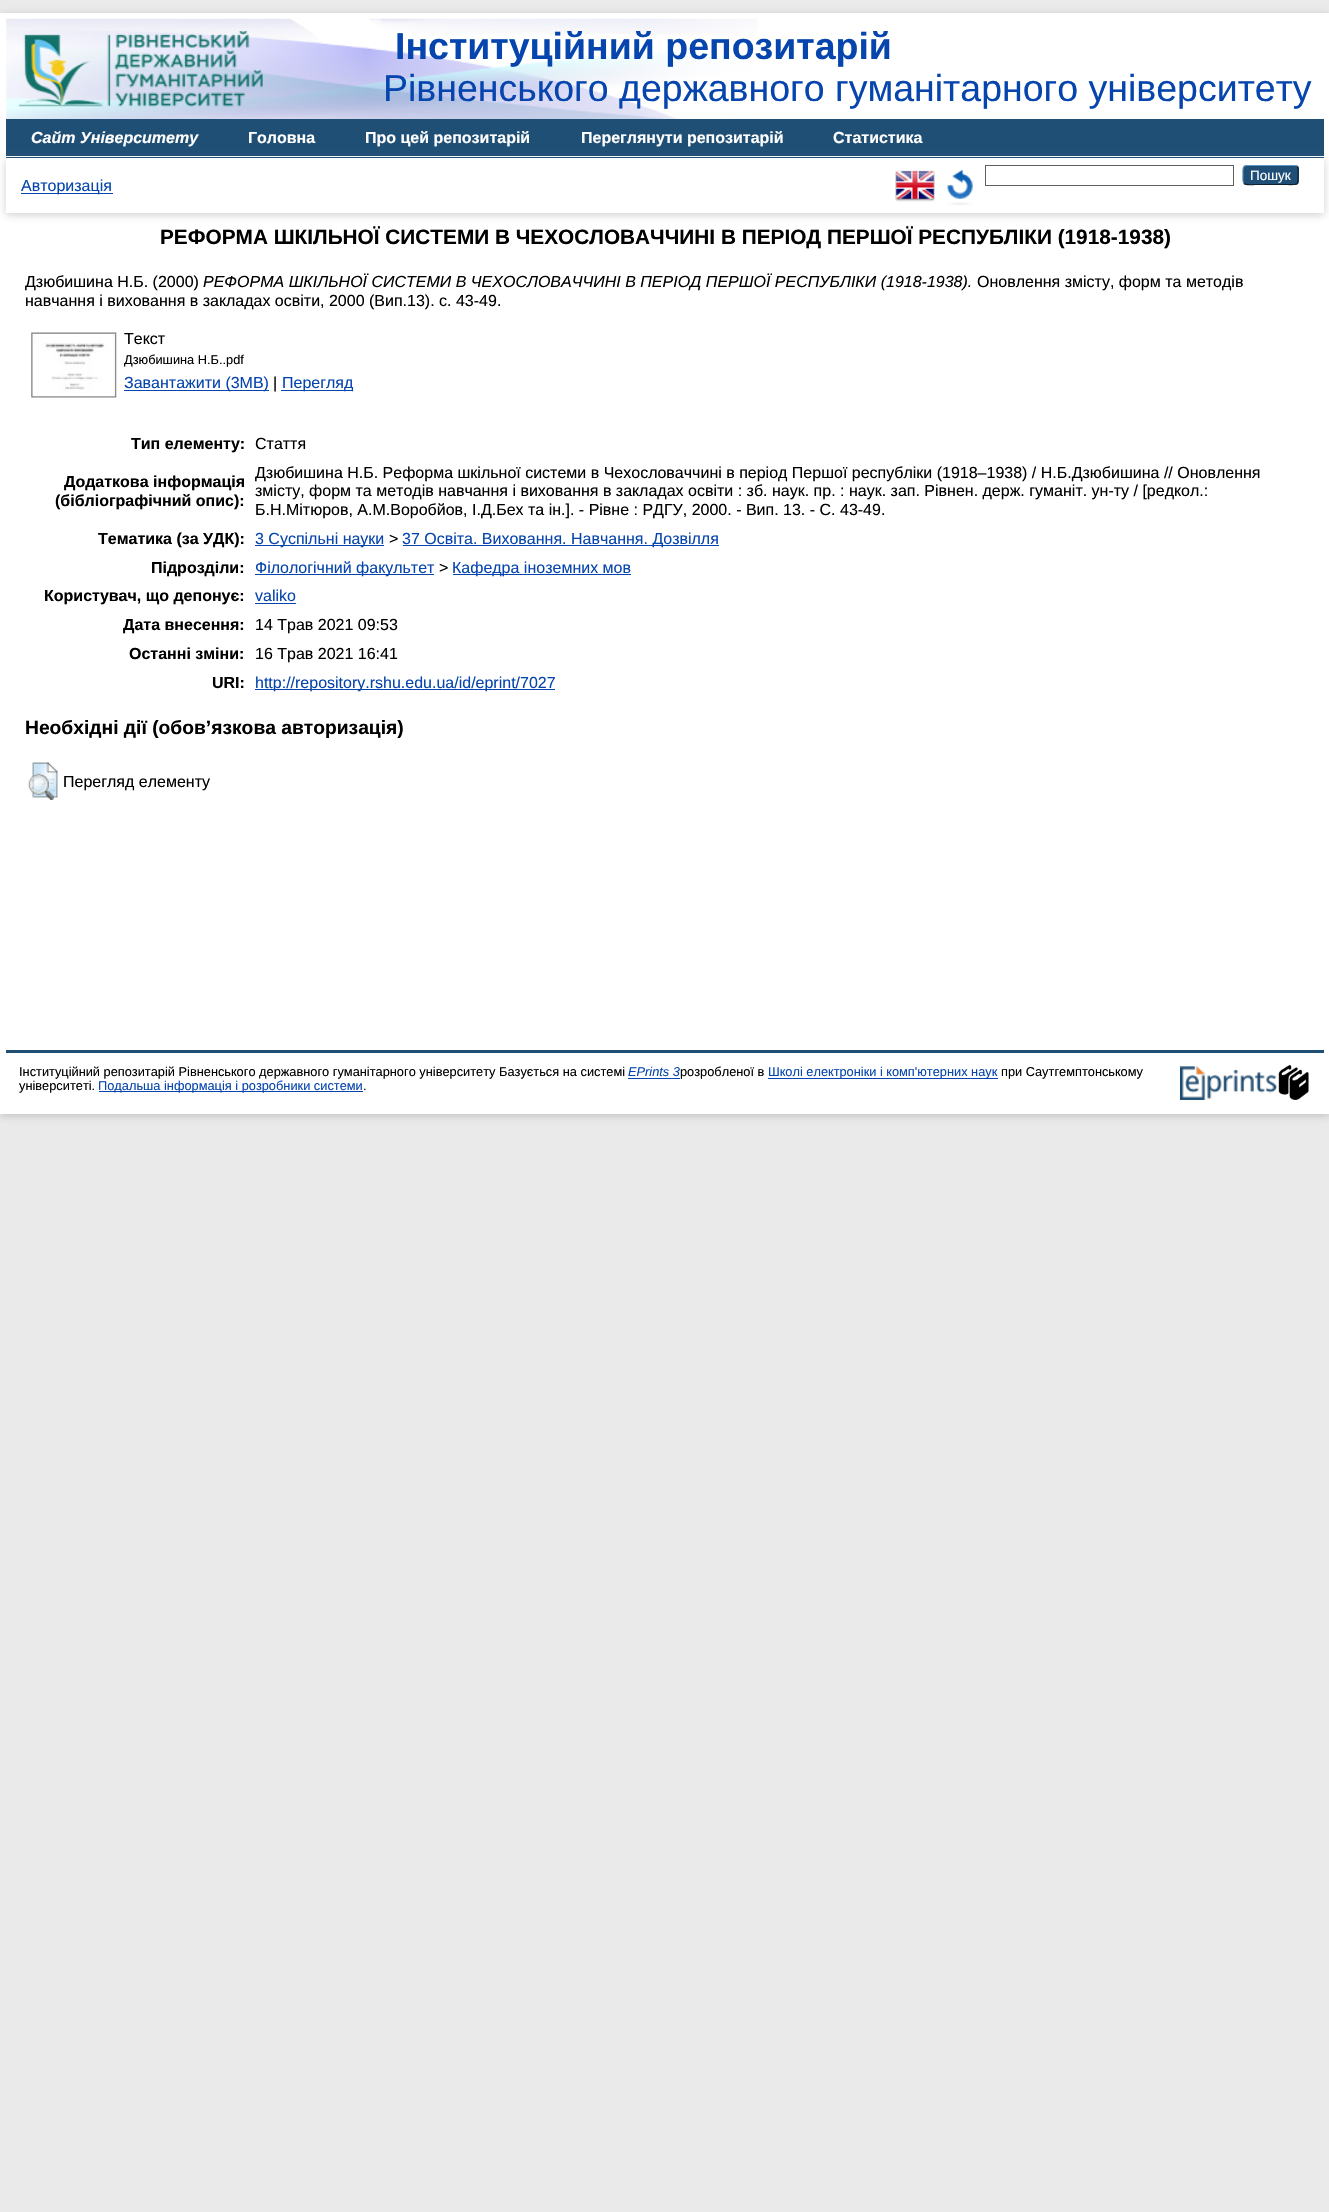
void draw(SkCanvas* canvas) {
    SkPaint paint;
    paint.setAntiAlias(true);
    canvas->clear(0xFFEAEAEA);
    paint.setColor(0x4D646464);
    paint.setMaskFilter(SkMaskFilter::MakeBlur(kNormal_SkBlurStyle, 4));
    canvas->drawRect(SkRect::MakeXYWH(0, 15, 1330, 1101), paint);
    paint.setMaskFilter(nullptr);
    paint.setColor(0xFFFFFFFF);
    canvas->drawRect(SkRect::MakeXYWH(0, 13, 1329, 1101), paint);
    canvas->drawImageRect(SkImages::DeferredFromEncodedData(SkData::MakeFromFileName("img1.png")), SkRect::MakeXYWH(6, 18, 752, 101), SkSamplingOptions());
    canvas->drawImageRect(SkImages::DeferredFromEncodedData(SkData::MakeFromFileName("img2.png")), SkRect::MakeXYWH(18, 31, 245, 76), SkSamplingOptions());
    SkFont font1(fontMgr->matchFamilyStyle("Liberation Sans", SkFontStyle::Bold()), 37.5f);
    font1.setSubpixel(true);
    paint.setColor(0xFF0645AD);
    canvas->drawString("Інституційний репозитарій", 395, 59, font1, paint);
    SkFont font2(fontMgr->matchFamilyStyle("Liberation Sans", SkFontStyle::Normal()), 37.5f);
    font2.setSubpixel(true);
    canvas->drawString("Рівненського державного гуманітарного університету", 383, 101, font2, paint);
    paint.setColor(0xFF204F76);
    canvas->drawRect(SkRect::MakeXYWH(6, 119, 1318, 39), paint);
    paint.setColor(0xFFFFFFFF);
    canvas->drawRect(SkRect::MakeXYWH(6, 156, 1318, 1), paint);
    SkFont font3(fontMgr->matchFamilyStyle("Liberation Sans", SkFontStyle::BoldItalic()), 16);
    font3.setSubpixel(true);
    canvas->drawString("Сайт Університету", 31, 143, font3, paint);
    SkFont font4(fontMgr->matchFamilyStyle("Liberation Sans", SkFontStyle::Bold()), 16);
    font4.setSubpixel(true);
    canvas->drawString("Головна", 248, 143, font4, paint);
    canvas->drawString("Про цей репозитарій", 365, 143, font4, paint);
    canvas->drawString("Переглянути репозитарій", 581, 143, font4, paint);
    canvas->drawString("Статистика", 833, 143, font4, paint);
    paint.setColor(0x4D646464);
    paint.setMaskFilter(SkMaskFilter::MakeBlur(kNormal_SkBlurStyle, 4));
    canvas->drawRect(SkRect::MakeXYWH(6, 160, 1318, 55), paint);
    paint.setMaskFilter(nullptr);
    paint.setColor(0xFFFFFFFF);
    canvas->drawRect(SkRect::MakeXYWH(6, 158, 1318, 55), paint);
    canvas->drawImageRect(SkImages::DeferredFromEncodedData(SkData::MakeFromFileName("img3.png")), SkRect::MakeXYWH(895, 170, 40, 32), SkSamplingOptions());
    canvas->drawImageRect(SkImages::DeferredFromEncodedData(SkData::MakeFromFileName("img4.png")), SkRect::MakeXYWH(947, 169, 26, 36), SkSamplingOptions());
    paint.setStyle(SkPaint::kStroke_Style);
    paint.setStrokeWidth(1);
    paint.setColor(0xFF606060);
    canvas->drawRect(SkRect::MakeXYWH(985.5f, 165.5f, 248, 20), paint);
    paint.setStyle(SkPaint::kFill_Style);
    paint.setColor(0xFF1F4F76);
    canvas->drawRoundRect(SkRect::MakeXYWH(1243, 165, 56, 20), 4, 4, paint);
    paint.setStyle(SkPaint::kStroke_Style);
    paint.setStrokeWidth(1.2f);
    paint.setColor(0xFF5B97C7);
    canvas->drawPath(SkPathBuilder().moveTo(1244, 166.5f).lineTo(1246, 165.5f).lineTo(1295.5f, 165.5f).lineTo(1297, 166.5f).detach(), paint);
    paint.setColor(0xFF0D2131);
    canvas->drawPath(SkPathBuilder().moveTo(1297, 166.5f).cubicTo(1299, 168.5f, 1298, 172.5f, 1298, 175).cubicTo(1298, 186, 1298.5f, 184.5f, 1287, 184.5f).lineTo(1254.5f, 184.5f).cubicTo(1254, 184.5f, 1246, 185.5f, 1244, 183.5f).detach(), paint);
    paint.setColor(0xFF5287B3);
    canvas->drawPath(SkPathBuilder().moveTo(1244, 183.5f).cubicTo(1242.5f, 181.5f, 1243, 177, 1243, 175).cubicTo(1243, 173, 1242.5f, 168.5f, 1244, 166.5f).detach(), paint);
    SkFont font5(fontMgr->matchFamilyStyle("Liberation Sans", SkFontStyle::Normal()), 13.5f);
    font5.setSubpixel(true);
    paint.setStyle(SkPaint::kFill_Style);
    paint.setColor(0xFFFFFFFF);
    canvas->drawString("Пошук", 1250, 180, font5, paint);
    paint.setColor(0xFF0645AD);
    canvas->drawRect(SkRect::MakeXYWH(21, 193, 92, 1), paint);
    SkFont font6(fontMgr->matchFamilyStyle("Liberation Sans", SkFontStyle::Normal()), 16);
    font6.setSubpixel(true);
    canvas->drawString("Авторизація", 21, 191, font6, paint);
    SkFont font7(fontMgr->matchFamilyStyle("Liberation Sans", SkFontStyle::Bold()), 20.8f);
    font7.setSubpixel(true);
    paint.setColor(0xFF000000);
    canvas->drawString("РЕФОРМА ШКІЛЬНОЇ СИСТЕМИ В ЧЕХОСЛОВАЧЧИНІ В ПЕРІОД ПЕРШОЇ РЕСПУБЛІКИ (1918-1938)", 160, 244, font7, paint);
    canvas->drawString("Дзюбишина Н.Б. (2000)", 25, 287, font6, paint);
    SkFont font8(fontMgr->matchFamilyStyle("Liberation Sans", SkFontStyle::Italic()), 16);
    font8.setSubpixel(true);
    canvas->drawString("РЕФОРМА ШКІЛЬНОЇ СИСТЕМИ В ЧЕХОСЛОВАЧЧИНІ В ПЕРІОД ПЕРШОЇ РЕСПУБЛІКИ (1918-1938).", 203, 287, font8, paint);
    canvas->drawString("Оновлення змісту, форм та методів", 977, 287, font6, paint);
    canvas->drawString("навчання і виховання в закладах освіти, 2000 (Вип.13). с. 43-49.", 25, 306, font6, paint);
    canvas->drawImageRect(SkImages::DeferredFromEncodedData(SkData::MakeFromFileName("img5.png")), SkRect::MakeXYWH(31, 332, 86, 66), SkSamplingOptions());
    canvas->drawString("Текст", 124, 344, font6, paint);
    SkFont font9(fontMgr->matchFamilyStyle("Liberation Sans", SkFontStyle::Normal()), 12.8f);
    font9.setSubpixel(true);
    canvas->drawString("Дзюбишина Н.Б..pdf", 124, 364, font9, paint);
    paint.setColor(0xFF0645AD);
    canvas->drawRect(SkRect::MakeXYWH(124, 390, 145, 1), paint);
    canvas->drawString("Завантажити (3MB)", 124, 388, font6, paint);
    paint.setColor(0xFF000000);
    canvas->drawString("|", 273, 388, font6, paint);
    paint.setColor(0xFF0645AD);
    canvas->drawRect(SkRect::MakeXYWH(281, 390, 72, 1), paint);
    canvas->drawString("Перегляд", 282, 388, font6, paint);
    paint.setColor(0xFF000000);
    canvas->drawString("Тип елементу:", 131, 449, font4, paint);
    canvas->drawString("Стаття", 255, 449, font6, paint);
    canvas->drawString("Додаткова інформація", 64, 487, font4, paint);
    canvas->drawString("(бібліографічний опис):", 55, 506, font4, paint);
    canvas->drawString("Дзюбишина Н.Б. Реформа шкільної системи в Чехословаччині в період Першої республіки (1918–1938) / Н.Б.Дзюбишина // Оновлення", 255, 478, font6, paint);
    canvas->drawString("змісту, форм та методів навчання і виховання в закладах освіти : зб. наук. пр. : наук. зап. Рівнен. держ. гуманіт. ун-ту / [редкол.:", 255, 496, font6, paint);
    canvas->drawString("Б.Н.Мітюров, А.М.Воробйов, І.Д.Бех та ін.]. - Рівне : РДГУ, 2000. - Вип. 13. - С. 43-49.", 255, 515, font6, paint);
    canvas->drawString("Тематика (за УДК):", 98, 544, font4, paint);
    paint.setColor(0xFF0645AD);
    canvas->drawRect(SkRect::MakeXYWH(255, 545, 129, 1), paint);
    canvas->drawString("3 Суспільні науки", 255, 544, font6, paint);
    paint.setColor(0xFF000000);
    canvas->drawString(">", 389, 544, font6, paint);
    paint.setColor(0xFF0645AD);
    canvas->drawRect(SkRect::MakeXYWH(403, 545, 316, 1), paint);
    canvas->drawString("37 Освіта. Виховання. Навчання. Дозвілля", 402, 544, font6, paint);
    paint.setColor(0xFF000000);
    canvas->drawString("Підрозділи:", 151, 573, font4, paint);
    paint.setColor(0xFF0645AD);
    canvas->drawRect(SkRect::MakeXYWH(255, 574, 179, 1), paint);
    canvas->drawString("Філологічний факультет", 255, 573, font6, paint);
    paint.setColor(0xFF000000);
    canvas->drawString(">", 439, 573, font6, paint);
    paint.setColor(0xFF0645AD);
    canvas->drawRect(SkRect::MakeXYWH(453, 574, 178, 1), paint);
    canvas->drawString("Кафедра іноземних мов", 452, 573, font6, paint);
    paint.setColor(0xFF000000);
    canvas->drawString("Користувач, що депонує:", 44, 601, font4, paint);
    paint.setColor(0xFF0645AD);
    canvas->drawString("valiko", 255, 601, font6, paint);
    canvas->drawRect(SkRect::MakeXYWH(255, 603, 41, 1), paint);
    paint.setColor(0xFF000000);
    canvas->drawString("Дата внесення:", 123, 630, font4, paint);
    canvas->drawString("14 Трав 2021 09:53", 255, 630, font6, paint);
    canvas->drawString("Останні зміни:", 129, 659, font4, paint);
    canvas->drawString("16 Трав 2021 16:41", 255, 659, font6, paint);
    canvas->drawString("URI:", 212, 688, font4, paint);
    paint.setColor(0xFF0645AD);
    canvas->drawRect(SkRect::MakeXYWH(255, 689, 300, 1), paint);
    canvas->drawString("http://repository.rshu.edu.ua/id/eprint/7027", 255, 688, font6, paint);
    SkFont font10(fontMgr->matchFamilyStyle("Liberation Sans", SkFontStyle::Bold()), 19.25f);
    font10.setSubpixel(true);
    paint.setColor(0xFF000000);
    canvas->drawString("Необхідні дії (обов’язкова авторизація)", 25, 734, font10, paint);
    canvas->drawImageRect(SkImages::DeferredFromEncodedData(SkData::MakeFromFileName("img6.png")), SkRect::MakeXYWH(28, 762, 30, 38), SkSamplingOptions());
    canvas->drawString("Перегляд елементу", 63, 787, font6, paint);
    paint.setColor(0xFF204F76);
    canvas->drawRect(SkRect::MakeXYWH(6, 1050, 1318, 3), paint);
    paint.setColor(0xFF000000);
    canvas->drawString("Інституційний репозитарій Рівненського державного гуманітарного університету Базується на системі", 19, 1076, font9, paint);
    SkFont font11(fontMgr->matchFamilyStyle("Liberation Sans", SkFontStyle::Italic()), 12.8f);
    font11.setSubpixel(true);
    paint.setColor(0xFF0645AD);
    canvas->drawString("EPrints 3", 628, 1076, font11, paint);
    canvas->drawRect(SkRect::MakeXYWH(628, 1078, 52, 1), paint);
    paint.setColor(0xFF000000);
    canvas->drawString("розробленої в", 680, 1076, font9, paint);
    paint.setColor(0xFF0645AD);
    canvas->drawRect(SkRect::MakeXYWH(768, 1078, 230, 1), paint);
    canvas->drawString("Школі електроніки і комп'ютерних наук", 768, 1076, font9, paint);
    paint.setColor(0xFF000000);
    canvas->drawString("при Саутгемптонському", 1001, 1076, font9, paint);
    canvas->drawString("університеті.", 19, 1090, font9, paint);
    paint.setColor(0xFF0645AD);
    canvas->drawRect(SkRect::MakeXYWH(99, 1091, 264, 1), paint);
    canvas->drawString("Подальша інформація і розробники системи", 98, 1090, font9, paint);
    paint.setColor(0xFF000000);
    canvas->drawString(".", 363, 1090, font9, paint);
    canvas->drawImageRect(SkImages::DeferredFromEncodedData(SkData::MakeFromFileName("img7.png")), SkRect::MakeXYWH(1180, 1066, 97, 34), SkSamplingOptions());
    canvas->drawImageRect(SkImages::DeferredFromEncodedData(SkData::MakeFromFileName("img8.png")), SkRect::MakeXYWH(1278, 1065, 31, 35), SkSamplingOptions());
}
